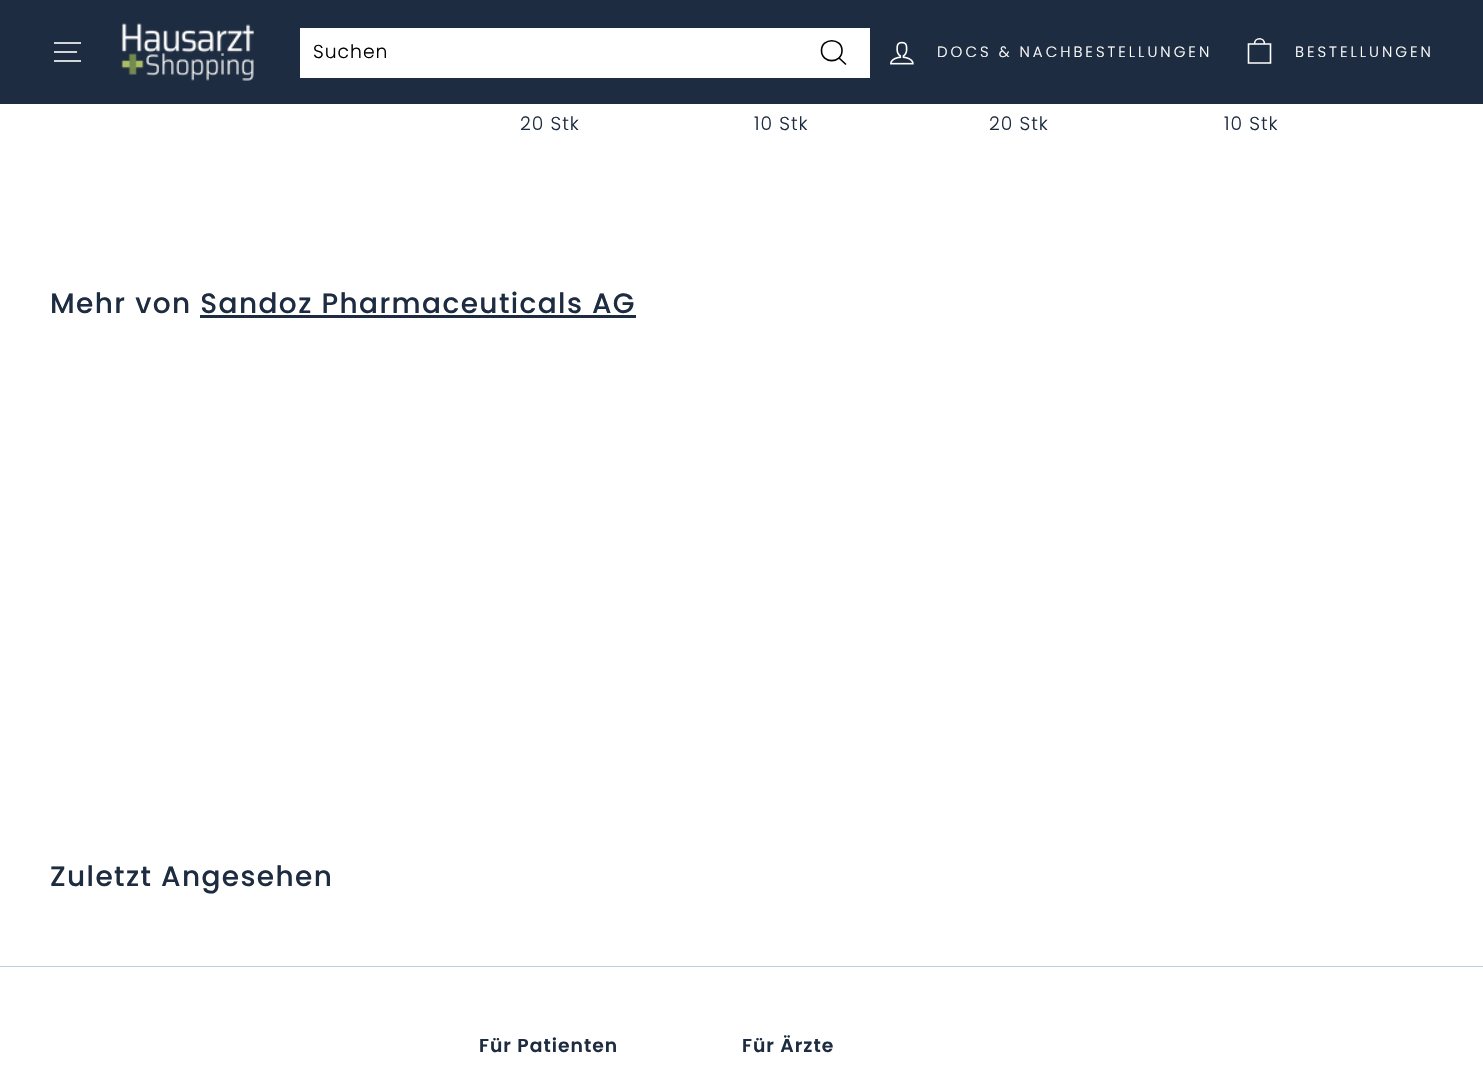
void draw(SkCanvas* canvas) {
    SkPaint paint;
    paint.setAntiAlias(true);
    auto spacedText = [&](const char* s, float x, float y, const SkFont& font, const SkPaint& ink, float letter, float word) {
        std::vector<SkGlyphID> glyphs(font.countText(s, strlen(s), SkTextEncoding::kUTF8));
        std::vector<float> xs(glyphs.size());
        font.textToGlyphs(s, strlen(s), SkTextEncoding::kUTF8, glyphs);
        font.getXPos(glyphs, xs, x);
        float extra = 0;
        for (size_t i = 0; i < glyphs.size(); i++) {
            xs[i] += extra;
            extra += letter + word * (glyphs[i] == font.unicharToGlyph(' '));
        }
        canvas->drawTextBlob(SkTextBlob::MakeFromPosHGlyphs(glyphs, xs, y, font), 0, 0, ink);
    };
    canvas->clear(0xFFFFFFFF);
    paint.setColor(0xFF1D2C40);
    canvas->drawRect(SkRect::MakeXYWH(0, 0, 1483, 104), paint);
    paint.setColor(0xFFD2D5D9);
    canvas->drawRect(SkRect::MakeXYWH(54, 42, 27, 2), paint);
    canvas->drawRect(SkRect::MakeXYWH(54, 51, 23, 2), paint);
    canvas->drawRect(SkRect::MakeXYWH(54, 60, 27, 2), paint);
    canvas->drawImageRect(SkImages::DeferredFromEncodedData(SkData::MakeFromFileName("img1.png")), SkRect::MakeXYWH(121, 23, 133, 58), SkSamplingOptions());
    paint.setColor(0xFFFFFFFF);
    canvas->drawRect(SkRect::MakeXYWH(300, 28, 570, 50), paint);
    SkFont font1(fontMgr->matchFamilyStyle("Poppins", SkFontStyle(300, SkFontStyle::kNormal_Width, SkFontStyle::kUpright_Slant)), 18.75f);
    font1.setSubpixel(true);
    paint.setColor(0xFF000000);
    spacedText("Suchen", 313, 58, font1, paint, 1, 0);
    paint.setStyle(SkPaint::kStroke_Style);
    paint.setStrokeWidth(1.6f);
    canvas->drawPath(SkPathBuilder().moveTo(842, 50.5f).cubicTo(842, 64, 821.5f, 64, 821.5f, 50.5f).cubicTo(821.5f, 37.5f, 842, 37.5f, 842, 50.5f).close().moveTo(846, 64.5f).lineTo(839, 58).detach(), paint);
    canvas->drawImageRect(SkImages::DeferredFromEncodedData(SkData::MakeFromFileName("img2.png")), SkRect::MakeXYWH(890, 41, 24, 24), SkSamplingOptions());
    SkFont font2(fontMgr->matchFamilyStyle("Poppins", SkFontStyle(300, SkFontStyle::kNormal_Width, SkFontStyle::kUpright_Slant)), 15);
    font2.setSubpixel(true);
    paint.setStyle(SkPaint::kFill_Style);
    paint.setColor(0xFFFFFFFF);
    spacedText("DOCS & NACHBESTELLUNGEN", 937, 57, font2, paint, 3, 0);
    paint.setStyle(SkPaint::kStroke_Style);
    canvas->drawPath(SkPathBuilder().moveTo(1254.5f, 44).cubicTo(1254.5f, 37, 1264.5f, 37, 1264.5f, 44).moveTo(1248.5f, 44).lineTo(1270.5f, 44).lineTo(1270.5f, 63).lineTo(1248.5f, 63).close().detach(), paint);
    paint.setStyle(SkPaint::kFill_Style);
    spacedText("BESTELLUNGEN", 1295, 57, font2, paint, 3, 0);
    paint.setColor(0xFF1D2C40);
    spacedText("20 Stk", 520, 130, font1, paint, 1, 0);
    spacedText("10 Stk", 754, 130, font1, paint, 1, 0);
    spacedText("20 Stk", 989, 130, font1, paint, 1, 0);
    spacedText("10 Stk", 1224, 130, font1, paint, 1, 0);
    SkFont font3(fontMgr->matchFamilyStyle("Poppins", SkFontStyle(500, SkFontStyle::kNormal_Width, SkFontStyle::kUpright_Slant)), 28);
    font3.setSubpixel(true);
    spacedText("Mehr von Sandoz Pharmaceuticals AG", 50, 313, font3, paint, 1.4f, 0);
    canvas->drawRect(SkRect::MakeXYWH(200, 315, 436, 3), paint);
    spacedText("Zuletzt Angesehen", 50, 886, font3, paint, 1.4f, 0);
    paint.setColor(0xFFB8D0D9);
    canvas->drawRect(SkRect::MakeXYWH(0, 966, 1483, 1), paint);
    SkFont font4(fontMgr->matchFamilyStyle("Poppins", SkFontStyle(600, SkFontStyle::kNormal_Width, SkFontStyle::kUpright_Slant)), 18.75f);
    font4.setSubpixel(true);
    paint.setColor(0xFF1D2C40);
    spacedText("Für Patienten", 479, 1052, font4, paint, 1, 0);
    spacedText("Für Ärzte", 742, 1052, font4, paint, 1, 0);
}
